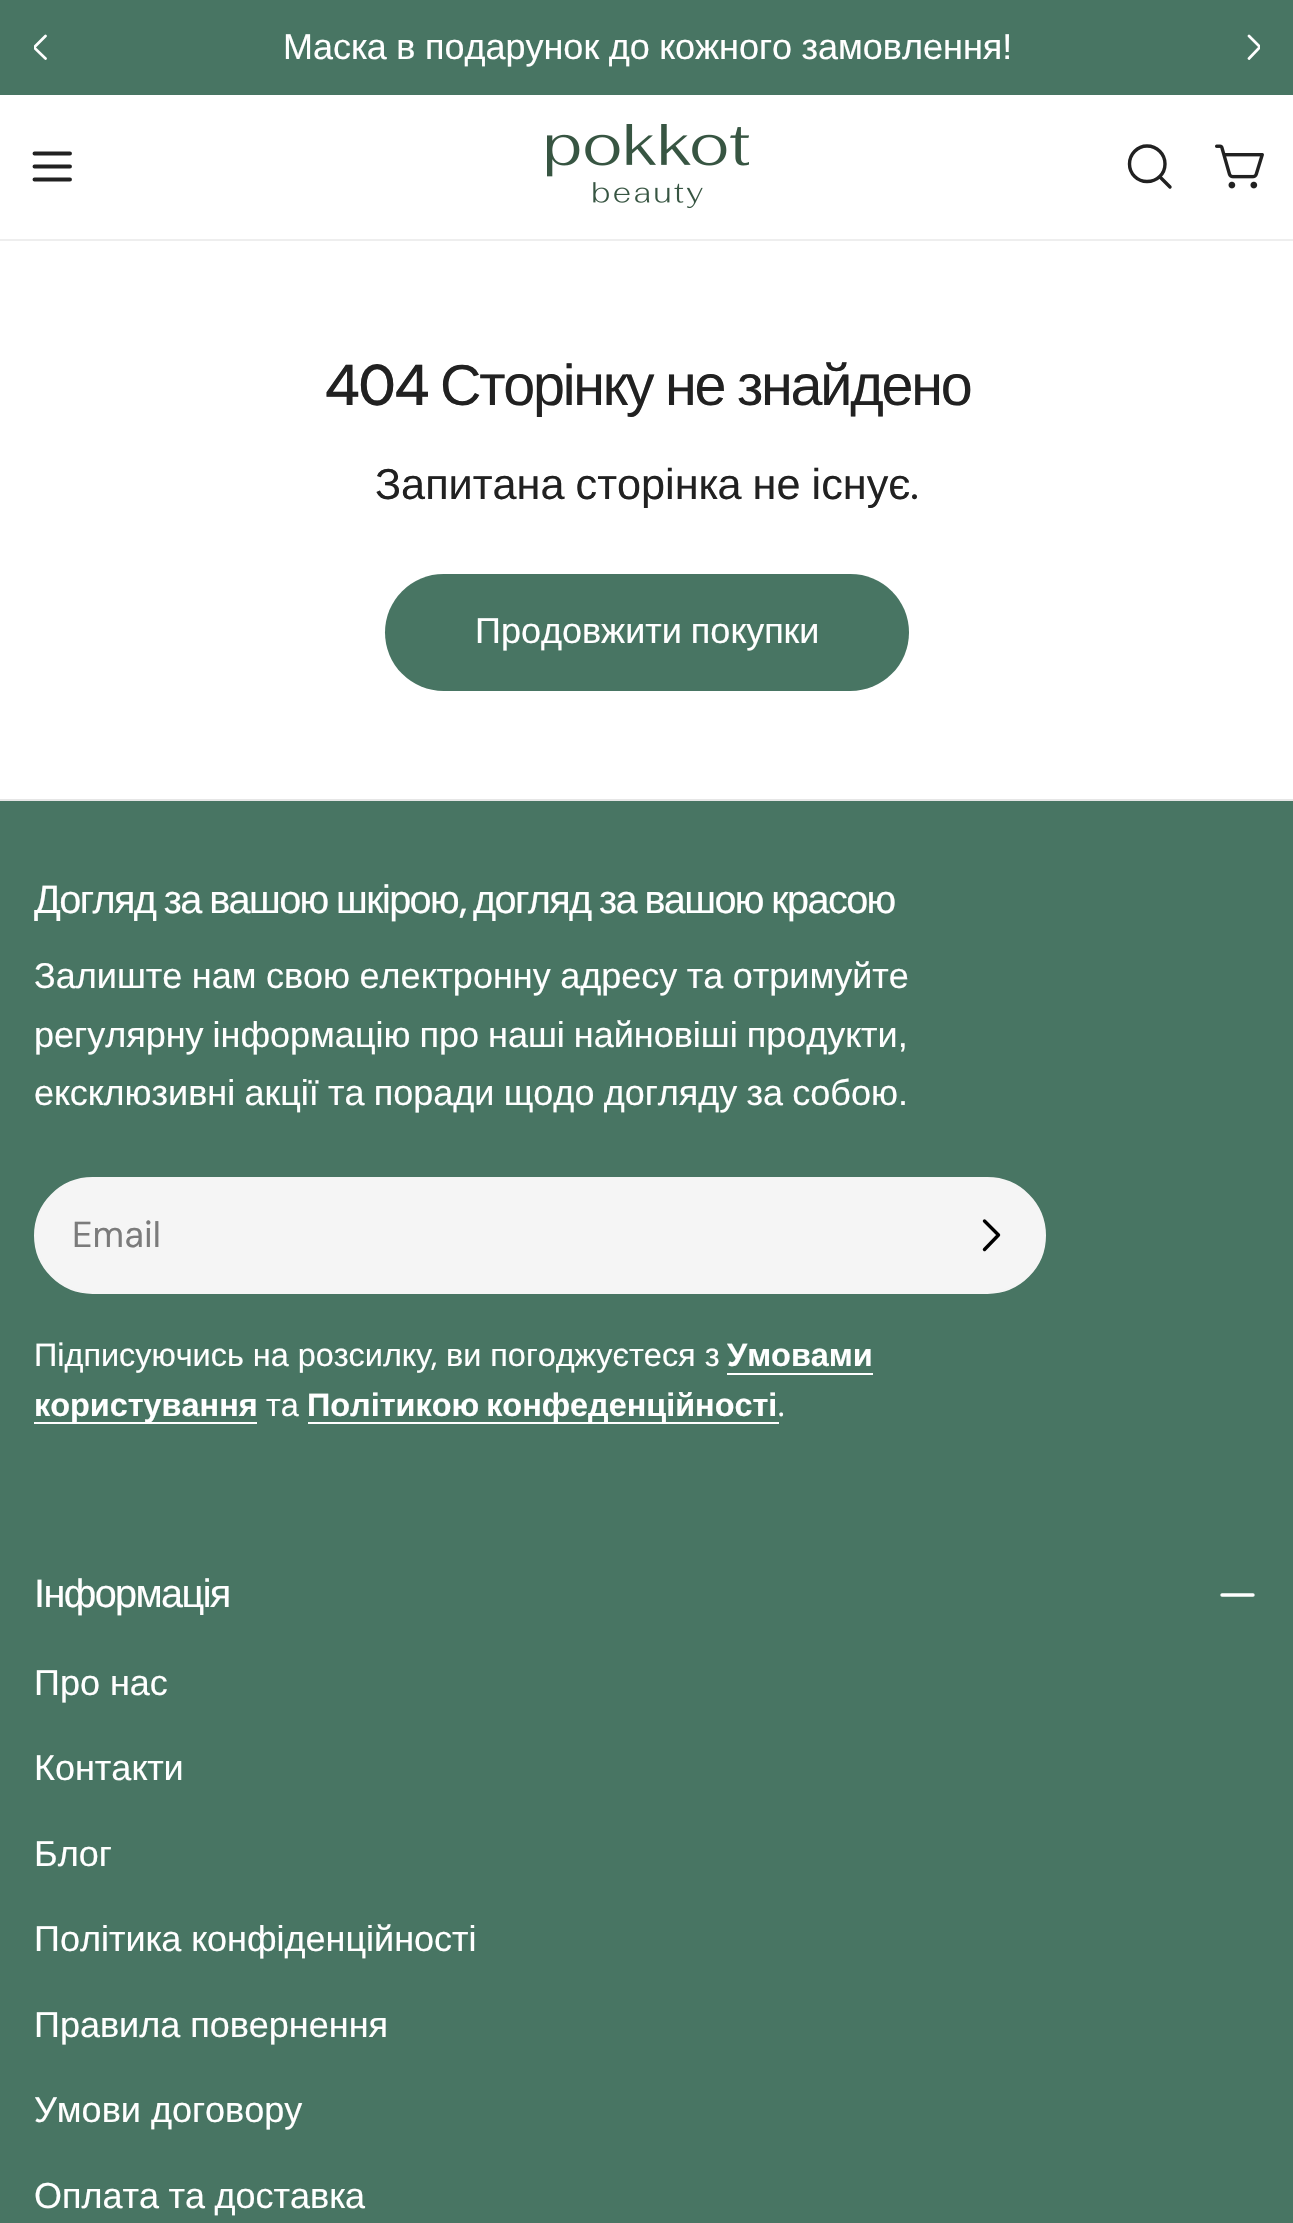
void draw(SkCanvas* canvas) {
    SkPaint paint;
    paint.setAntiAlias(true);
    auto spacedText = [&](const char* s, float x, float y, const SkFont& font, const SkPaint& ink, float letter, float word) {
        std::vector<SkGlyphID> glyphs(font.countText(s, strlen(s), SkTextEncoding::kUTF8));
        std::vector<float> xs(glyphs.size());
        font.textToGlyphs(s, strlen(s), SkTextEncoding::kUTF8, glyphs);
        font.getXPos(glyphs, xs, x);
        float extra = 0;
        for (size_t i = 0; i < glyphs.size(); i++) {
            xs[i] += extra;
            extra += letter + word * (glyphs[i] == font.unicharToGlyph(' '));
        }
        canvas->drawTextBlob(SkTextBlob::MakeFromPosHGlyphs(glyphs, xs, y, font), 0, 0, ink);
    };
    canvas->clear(0xFFFFFFFF);
    paint.setColor(0xFF487563);
    canvas->drawRect(SkRect::MakeXYWH(0, 0, 1293, 95), paint);
    canvas->save();
    canvas->clipRect(SkRect::MakeXYWH(34, 29, 25, 36));
    paint.setStyle(SkPaint::kStroke_Style);
    paint.setStrokeWidth(2.7f);
    paint.setStrokeCap(SkPaint::kRound_Cap);
    paint.setStrokeJoin(SkPaint::kRound_Join);
    paint.setColor(0xFFFFFFFF);
    canvas->drawPath(SkPathBuilder().moveTo(45.5f, 58.5f).lineTo(34, 47.5f).lineTo(45.5f, 36).detach(), paint);
    canvas->restore();
    canvas->save();
    canvas->clipRect(SkRect::MakeXYWH(1235, 29, 25, 36));
    canvas->drawPath(SkPathBuilder().moveTo(1249, 36).lineTo(1260, 47).lineTo(1249, 58.5f).detach(), paint);
    canvas->restore();
    SkFont font1(fontMgr->matchFamilyStyle("Liberation Sans", SkFontStyle::Normal()), 36);
    font1.setSubpixel(true);
    paint.setStyle(SkPaint::kFill_Style);
    spacedText("Маска в подарунок до кожного замовлення!", 283, 59, font1, paint, 0, -0.5f);
    paint.setColor(0xFFEEEEEE);
    canvas->drawRect(SkRect::MakeXYWH(0, 239, 1293, 2), paint);
    paint.setStyle(SkPaint::kStroke_Style);
    paint.setStrokeWidth(3.9f);
    paint.setColor(0xFF212121);
    canvas->drawPath(SkPathBuilder().moveTo(34.5f, 166.5f).lineTo(70, 166.5f).moveTo(34.5f, 153.5f).lineTo(70, 153.5f).moveTo(34.5f, 179.5f).lineTo(70, 179.5f).detach(), paint);
    canvas->drawImageRect(SkImages::DeferredFromEncodedData(SkData::MakeFromFileName("img1.png")), SkRect::MakeXYWH(547, 124, 202, 85), SkSamplingOptions());
    paint.setStrokeWidth(3.4f);
    canvas->drawPath(SkPathBuilder().moveTo(1147, 181.5f).cubicTo(1157, 181.5f, 1165, 174, 1165, 164).cubicTo(1165, 154, 1157, 146, 1147, 146).cubicTo(1137.5f, 146, 1129.5f, 154, 1129.5f, 164).cubicTo(1129.5f, 174, 1137.5f, 181.5f, 1147, 181.5f).close().moveTo(1159.5f, 176.5f).lineTo(1170, 187).detach(), paint);
    canvas->drawImageRect(SkImages::DeferredFromEncodedData(SkData::MakeFromFileName("img2.png")), SkRect::MakeXYWH(1215, 144, 49, 45), SkSamplingOptions());
    SkFont font2(fontMgr->matchFamilyStyle("DM Sans", SkFontStyle(500, SkFontStyle::kNormal_Width, SkFontStyle::kUpright_Slant)), 57.5f);
    font2.setSubpixel(true);
    paint.setStyle(SkPaint::kFill_Style);
    spacedText("404", 324, 405, font2, paint, -2.25f, 0);
    SkFont font3(fontMgr->matchFamilyStyle("Liberation Sans", SkFontStyle::Normal()), 57.5f);
    font3.setSubpixel(true);
    spacedText("Сторінку не знайдено", 440, 405, font3, paint, -2.25f, -1);
    SkFont font4(fontMgr->matchFamilyStyle("Liberation Sans", SkFontStyle::Normal()), 43.25f);
    font4.setSubpixel(true);
    spacedText("Запитана сторінка не існує", 375, 499, font4, paint, 0, -1);
    SkFont font5(fontMgr->matchFamilyStyle("DM Sans", SkFontStyle::Normal()), 43.25f);
    font5.setSubpixel(true);
    canvas->drawString(".", 910, 499, font5, paint);
    paint.setColor(0xFF487563);
    canvas->drawRoundRect(SkRect::MakeXYWH(385, 574, 524, 117), 58.5f, 58.5f, paint);
    paint.setColor(0xFFFFFFFF);
    spacedText("Продовжити покупки", 475, 643, font1, paint, 0, -1);
    paint.setColor(0xFF487563);
    canvas->drawRect(SkRect::MakeXYWH(0, 801, 1293, 1422), paint);
    paint.setColor(0xFFE6E6E6);
    canvas->drawRect(SkRect::MakeXYWH(0, 799, 1293, 2), paint);
    SkFont font6(fontMgr->matchFamilyStyle("Liberation Sans", SkFontStyle::Normal()), 39.6f);
    font6.setSubpixel(true);
    paint.setColor(0xFFFFFFFF);
    spacedText("Догляд за вашою шкірою", 34, 913, font6, paint, -1.6f, -1);
    SkFont font7(fontMgr->matchFamilyStyle("DM Sans", SkFontStyle(500, SkFontStyle::kNormal_Width, SkFontStyle::kUpright_Slant)), 39.6f);
    font7.setSubpixel(true);
    spacedText(",", 459, 913, font7, paint, -1.6f, 0);
    spacedText("догляд за вашою красою", 473, 913, font6, paint, -1.6f, -1);
    spacedText("Залиште нам свою електронну адресу та отримуйте", 34, 988, font1, paint, 0, -0.5f);
    spacedText("регулярну інформацію про наші найновіші продукти,", 34, 1047, font1, paint, 0, -1);
    spacedText("ексклюзивні акції та поради щодо догляду за собою.", 34, 1105, font1, paint, 0, -0.75f);
    paint.setColor(0xFFF5F5F5);
    canvas->drawRoundRect(SkRect::MakeXYWH(35, 1178, 1010, 115), 57.5f, 57.5f, paint);
    paint.setStyle(SkPaint::kStroke_Style);
    paint.setStrokeWidth(2);
    paint.setStrokeCap(SkPaint::kButt_Cap);
    paint.setStrokeJoin(SkPaint::kMiter_Join);
    canvas->drawRoundRect(SkRect::MakeXYWH(35, 1178, 1010, 115), 57.5f, 57.5f, paint);
    SkFont font8(fontMgr->matchFamilyStyle("DM Sans", SkFontStyle::Normal()), 36);
    font8.setSubpixel(true);
    paint.setStyle(SkPaint::kFill_Style);
    paint.setColor(0xFF7B7B7B);
    canvas->drawString("Email", 72, 1247, font8, paint);
    paint.setStyle(SkPaint::kStroke_Style);
    paint.setStrokeWidth(3.4f);
    paint.setStrokeCap(SkPaint::kRound_Cap);
    paint.setStrokeJoin(SkPaint::kRound_Join);
    paint.setColor(0xFF000000);
    canvas->drawPath(SkPathBuilder().moveTo(984.5f, 1221).lineTo(998.5f, 1235).lineTo(984.5f, 1249.5f).detach(), paint);
    SkFont font9(fontMgr->matchFamilyStyle("Liberation Sans", SkFontStyle::Normal()), 32.4f);
    font9.setSubpixel(true);
    paint.setStyle(SkPaint::kFill_Style);
    paint.setColor(0xFFFFFFFF);
    canvas->drawString("Підписуючись на розсилку", 34, 1366, font9, paint);
    SkFont font10(fontMgr->matchFamilyStyle("DM Sans", SkFontStyle::Normal()), 32.4f);
    font10.setSubpixel(true);
    canvas->drawString(",", 431, 1366, font10, paint);
    canvas->drawString("ви погоджуєтеся з", 446, 1366, font9, paint);
    SkFont font11(fontMgr->matchFamilyStyle("Liberation Sans", SkFontStyle::Bold()), 32.4f);
    font11.setSubpixel(true);
    canvas->drawString("Умовами", 727, 1366, font11, paint);
    canvas->drawRect(SkRect::MakeXYWH(727, 1373, 146, 2), paint);
    canvas->drawRect(SkRect::MakeXYWH(34, 1422, 223, 2), paint);
    canvas->drawString("користування", 34, 1416, font11, paint);
    canvas->drawString("та", 266, 1416, font9, paint);
    canvas->drawRect(SkRect::MakeXYWH(308, 1422, 471, 2), paint);
    spacedText("Політикою конфеденційності", 307, 1416, font11, paint, 0, -2);
    SkFont font12(fontMgr->matchFamilyStyle("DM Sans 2", SkFontStyle::Normal()), 32.4f);
    font12.setSubpixel(true);
    canvas->drawString(".", 778, 1416, font12, paint);
    spacedText("Інформація", 34, 1607, font6, paint, -1.6f, 0);
    paint.setStyle(SkPaint::kStroke_Style);
    canvas->drawPath(SkPathBuilder().moveTo(1222, 1595).lineTo(1253, 1595).moveTo(1222, 1595).lineTo(1253, 1595).detach(), paint);
    paint.setStyle(SkPaint::kFill_Style);
    canvas->drawString("Про нас", 34, 1695, font1, paint);
    canvas->drawString("Контакти", 34, 1780, font1, paint);
    canvas->drawString("Блог", 34, 1866, font1, paint);
    canvas->drawString("Політика конфіденційності", 34, 1951, font1, paint);
    canvas->drawString("Правила повернення", 34, 2037, font1, paint);
    canvas->drawString("Умови договору", 34, 2122, font1, paint);
    spacedText("Оплата та доставка", 34, 2208, font1, paint, 0, -0.5f);
}
